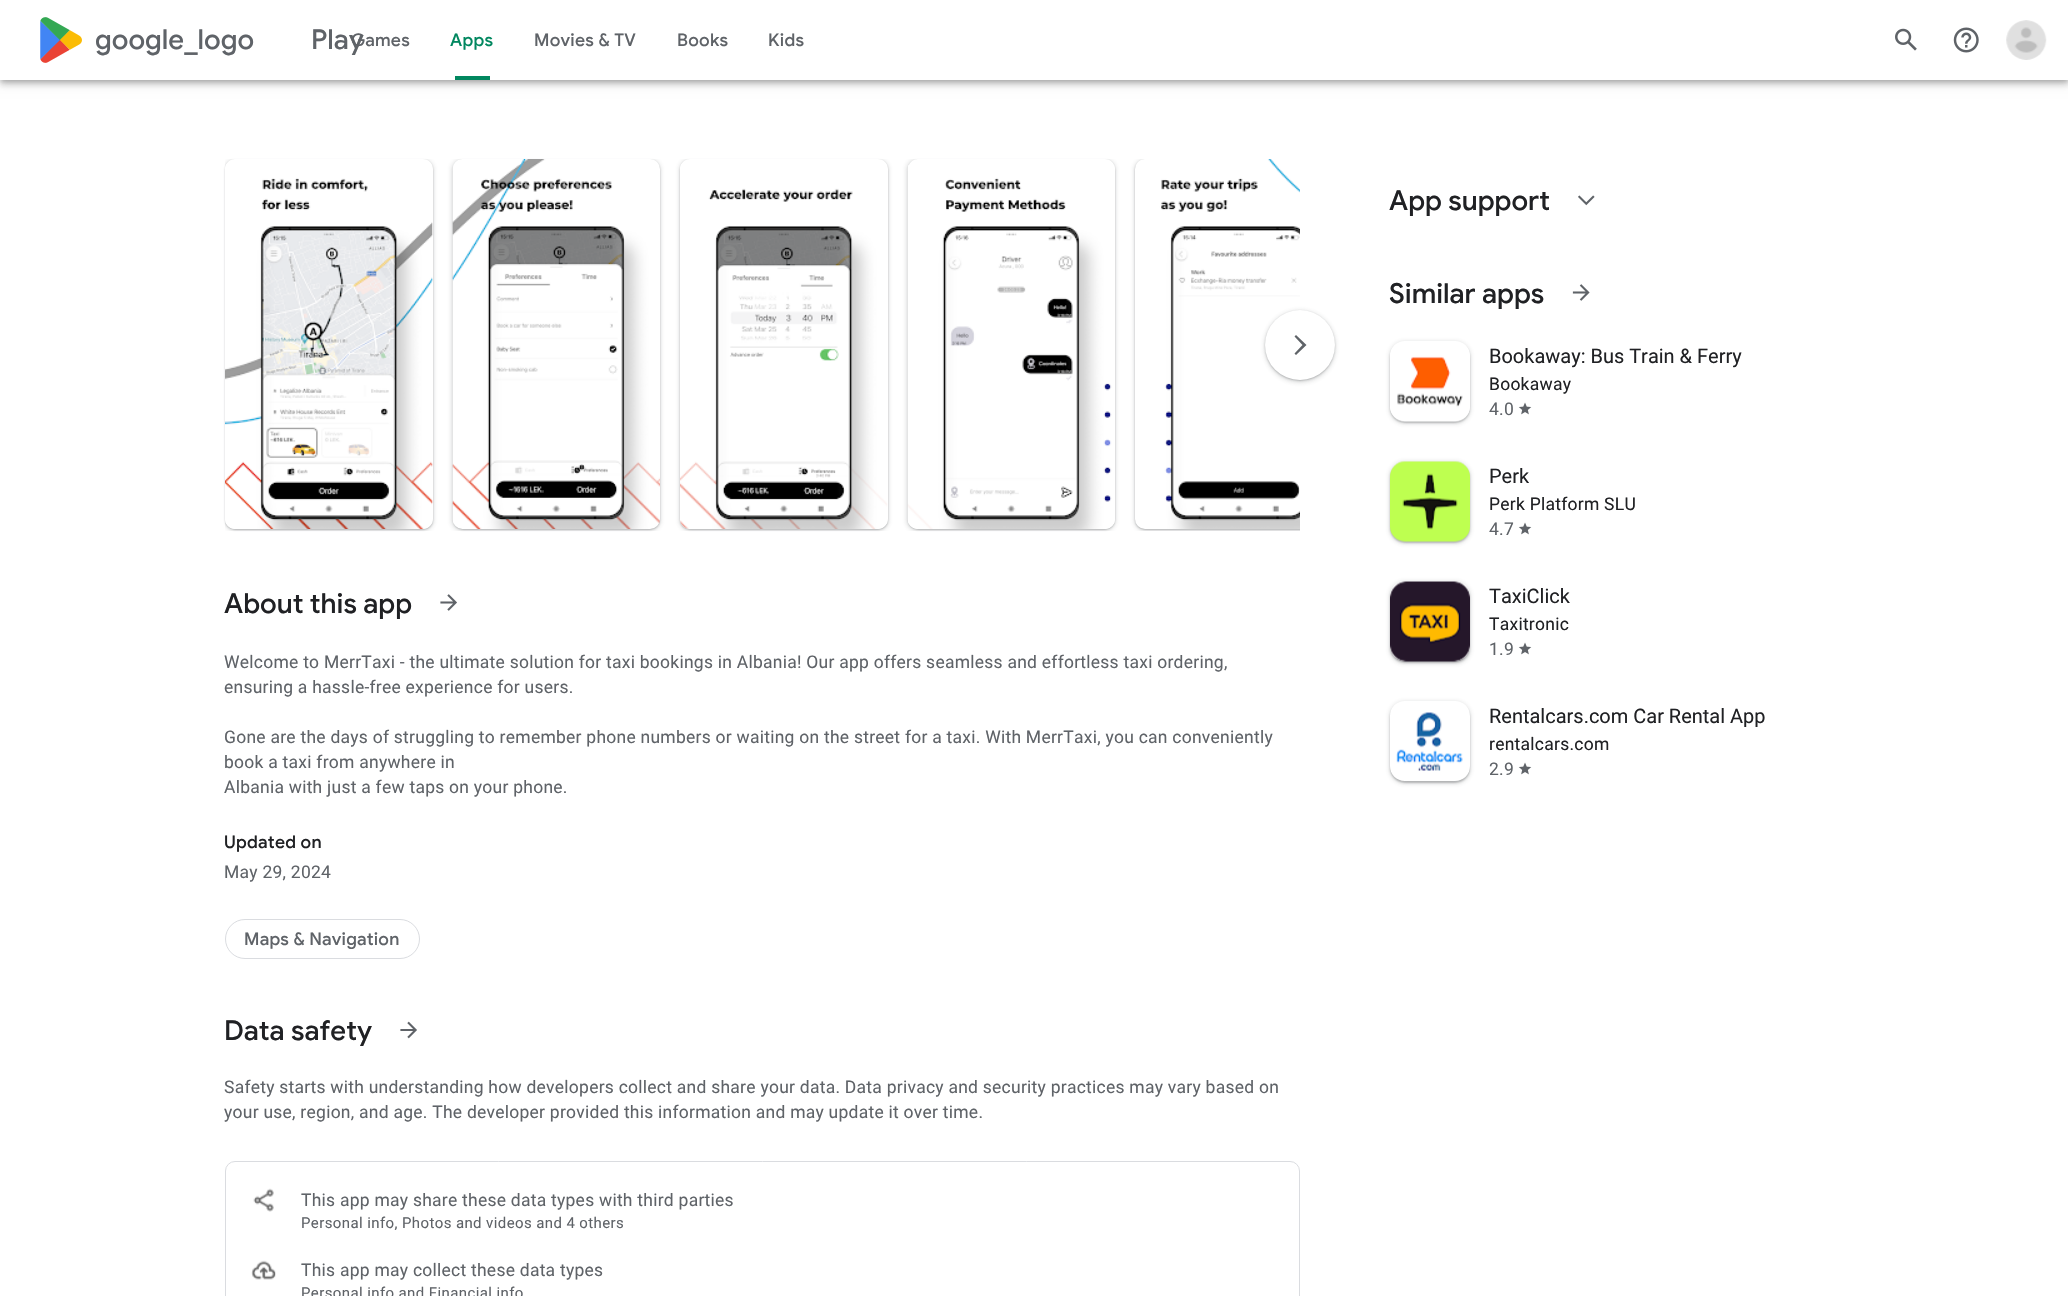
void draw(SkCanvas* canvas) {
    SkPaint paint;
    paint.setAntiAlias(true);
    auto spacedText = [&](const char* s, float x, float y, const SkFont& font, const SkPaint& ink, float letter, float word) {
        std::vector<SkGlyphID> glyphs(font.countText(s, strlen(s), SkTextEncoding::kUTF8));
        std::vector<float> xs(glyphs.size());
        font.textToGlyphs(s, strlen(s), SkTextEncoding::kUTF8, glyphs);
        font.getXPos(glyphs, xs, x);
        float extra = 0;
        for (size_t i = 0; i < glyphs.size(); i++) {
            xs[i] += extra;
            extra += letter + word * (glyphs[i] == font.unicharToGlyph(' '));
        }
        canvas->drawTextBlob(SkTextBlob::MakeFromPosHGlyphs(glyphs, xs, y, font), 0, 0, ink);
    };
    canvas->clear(0xFFFFFFFF);
    paint.setColor(0x33000000);
    paint.setMaskFilter(SkMaskFilter::MakeBlur(kNormal_SkBlurStyle, 2.5f));
    canvas->drawRect(SkRect::MakeXYWH(1, 4, 2067, 77), paint);
    paint.setMaskFilter(nullptr);
    paint.setColor(0x1F000000);
    paint.setMaskFilter(SkMaskFilter::MakeBlur(kNormal_SkBlurStyle, 6));
    canvas->drawRect(SkRect::MakeXYWH(0, 1, 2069, 80), paint);
    paint.setMaskFilter(nullptr);
    paint.setColor(0x24000000);
    paint.setMaskFilter(SkMaskFilter::MakeBlur(kNormal_SkBlurStyle, 3));
    canvas->drawRect(SkRect::MakeXYWH(0, 5, 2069, 80), paint);
    paint.setMaskFilter(nullptr);
    paint.setColor(0xFFFFFFFF);
    canvas->drawRect(SkRect::MakeXYWH(0, 0, 2068, 80), paint);
    canvas->drawImageRect(SkImages::DeferredFromEncodedData(SkData::MakeFromFileName("img1.png")), SkRect::MakeXYWH(40, 17, 42, 46), SkSamplingOptions());
    SkFont font1(fontMgr->matchFamilyStyle("Google Sans", SkFontStyle(500, SkFontStyle::kNormal_Width, SkFontStyle::kUpright_Slant)), 27.5f);
    font1.setSubpixel(true);
    paint.setColor(0xFF5F6368);
    spacedText("google_logo", 95, 49, font1, paint, 0, 69);
    spacedText("Play", 311, 49, font1, paint, 0, 69);
    SkFont font2(fontMgr->matchFamilyStyle("Google Sans", SkFontStyle(500, SkFontStyle::kNormal_Width, SkFontStyle::kUpright_Slant)), 17.5f);
    font2.setSubpixel(true);
    spacedText("Games", 351, 46, font2, paint, 0.25f, 0);
    paint.setColor(0xFF01875F);
    spacedText("Apps", 450, 46, font2, paint, 0.25f, 0);
    canvas->drawRect(SkRect::MakeXYWH(455, 76, 35, 4), paint);
    paint.setColor(0xFF5F6368);
    spacedText("Movies & TV", 534, 46, font2, paint, 0.25f, 0);
    spacedText("Books", 677, 46, font2, paint, 0.25f, 0);
    spacedText("Kids", 768, 46, font2, paint, 0.25f, 0);
    canvas->drawImageRect(SkImages::DeferredFromEncodedData(SkData::MakeFromFileName("img2.png")), SkRect::MakeXYWH(1895, 28, 22, 23), SkSamplingOptions());
    canvas->drawImageRect(SkImages::DeferredFromEncodedData(SkData::MakeFromFileName("img3.png")), SkRect::MakeXYWH(1953, 27, 26, 26), SkSamplingOptions());
    canvas->drawImageRect(SkImages::DeferredFromEncodedData(SkData::MakeFromFileName("img4.png")), SkRect::MakeXYWH(2006, 20, 41, 40), SkSamplingOptions());
    paint.setColor(0xFF202124);
    canvas->drawString("App support", 1389, 210, font1, paint);
    canvas->drawImageRect(SkImages::DeferredFromEncodedData(SkData::MakeFromFileName("img5.png")), SkRect::MakeXYWH(1578, 195, 17, 11), SkSamplingOptions());
    canvas->drawString("Similar apps", 1389, 303, font1, paint);
    canvas->drawImageRect(SkImages::DeferredFromEncodedData(SkData::MakeFromFileName("img6.png")), SkRect::MakeXYWH(1572, 284, 18, 17), SkSamplingOptions());
    canvas->save();
    canvas->clipPath(SkPathBuilder(SkPathFillType::kEvenOdd).moveTo(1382, 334).lineTo(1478, 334).lineTo(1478, 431).lineTo(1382, 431).close().moveTo(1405, 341).lineTo(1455, 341).cubicTo(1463.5f, 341, 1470, 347.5f, 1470, 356).lineTo(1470, 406).cubicTo(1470, 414.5f, 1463.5f, 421, 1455, 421).lineTo(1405, 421).cubicTo(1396.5f, 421, 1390, 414.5f, 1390, 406).lineTo(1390, 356).cubicTo(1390, 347.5f, 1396.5f, 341, 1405, 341).close().detach(), true);
    paint.setColor(0x263C4043);
    paint.setMaskFilter(SkMaskFilter::MakeBlur(kNormal_SkBlurStyle, 2));
    canvas->drawRoundRect(SkRect::MakeXYWH(1389, 341, 82, 83), 16, 16, paint);
    paint.setMaskFilter(nullptr);
    canvas->restore();
    canvas->save();
    canvas->clipPath(SkPathBuilder(SkPathFillType::kEvenOdd).moveTo(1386, 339).lineTo(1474, 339).lineTo(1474, 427).lineTo(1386, 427).close().moveTo(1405, 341).lineTo(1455, 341).cubicTo(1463.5f, 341, 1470, 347.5f, 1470, 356).lineTo(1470, 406).cubicTo(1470, 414.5f, 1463.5f, 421, 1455, 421).lineTo(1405, 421).cubicTo(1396.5f, 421, 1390, 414.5f, 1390, 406).lineTo(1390, 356).cubicTo(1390, 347.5f, 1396.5f, 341, 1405, 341).close().detach(), true);
    paint.setColor(0x4D3C4043);
    paint.setMaskFilter(SkMaskFilter::MakeBlur(kNormal_SkBlurStyle, 1));
    canvas->drawRoundRect(SkRect::MakeXYWH(1390, 343, 80, 80), 15, 15, paint);
    paint.setMaskFilter(nullptr);
    canvas->restore();
    canvas->drawImageRect(SkImages::DeferredFromEncodedData(SkData::MakeFromFileName("img7.png")), SkRect::MakeXYWH(1390, 348, 80, 74), SkSamplingOptions());
    SkFont font3(fontMgr->matchFamilyStyle("Roboto", SkFontStyle::Normal()), 20);
    font3.setSubpixel(true);
    paint.setColor(0xFF202124);
    canvas->drawString("Bookaway: Bus Train & Ferry", 1489, 363, font3, paint);
    SkFont font4(fontMgr->matchFamilyStyle("Roboto", SkFontStyle::Normal()), 17.5f);
    font4.setSubpixel(true);
    spacedText("Bookaway", 1489, 390, font4, paint, 0.25f, 0);
    paint.setColor(0xFF5F6368);
    spacedText("4.0", 1489, 415, font4, paint, 0.25f, 0);
    canvas->drawImageRect(SkImages::DeferredFromEncodedData(SkData::MakeFromFileName("img8.png")), SkRect::MakeXYWH(1518, 402, 14, 13), SkSamplingOptions());
    paint.setColor(0x263C4043);
    paint.setMaskFilter(SkMaskFilter::MakeBlur(kNormal_SkBlurStyle, 2));
    canvas->drawRoundRect(SkRect::MakeXYWH(1389, 461, 82, 83), 16, 16, paint);
    paint.setMaskFilter(nullptr);
    paint.setColor(0x4D3C4043);
    paint.setMaskFilter(SkMaskFilter::MakeBlur(kNormal_SkBlurStyle, 1));
    canvas->drawRoundRect(SkRect::MakeXYWH(1390, 463, 80, 80), 15, 15, paint);
    paint.setMaskFilter(nullptr);
    canvas->drawImageRect(SkImages::DeferredFromEncodedData(SkData::MakeFromFileName("img9.png")), SkRect::MakeXYWH(1390, 461, 80, 81), SkSamplingOptions());
    paint.setColor(0xFF202124);
    canvas->drawString("Perk", 1489, 483, font3, paint);
    spacedText("Perk Platform SLU", 1489, 510, font4, paint, 0.25f, 0);
    paint.setColor(0xFF5F6368);
    spacedText("4.7", 1489, 535, font4, paint, 0.25f, 0);
    canvas->drawImageRect(SkImages::DeferredFromEncodedData(SkData::MakeFromFileName("img8.png")), SkRect::MakeXYWH(1518, 522, 14, 13), SkSamplingOptions());
    canvas->save();
    canvas->clipPath(SkPathBuilder(SkPathFillType::kEvenOdd).moveTo(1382, 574).lineTo(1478, 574).lineTo(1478, 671).lineTo(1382, 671).close().moveTo(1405, 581).lineTo(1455, 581).cubicTo(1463.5f, 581, 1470, 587.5f, 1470, 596).lineTo(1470, 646).cubicTo(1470, 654.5f, 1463.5f, 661, 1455, 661).lineTo(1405, 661).cubicTo(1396.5f, 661, 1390, 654.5f, 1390, 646).lineTo(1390, 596).cubicTo(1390, 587.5f, 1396.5f, 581, 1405, 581).close().detach(), true);
    paint.setColor(0x263C4043);
    paint.setMaskFilter(SkMaskFilter::MakeBlur(kNormal_SkBlurStyle, 2));
    canvas->drawRoundRect(SkRect::MakeXYWH(1389, 581, 82, 83), 16, 16, paint);
    paint.setMaskFilter(nullptr);
    canvas->restore();
    canvas->save();
    canvas->clipPath(SkPathBuilder(SkPathFillType::kEvenOdd).moveTo(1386, 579).lineTo(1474, 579).lineTo(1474, 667).lineTo(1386, 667).close().moveTo(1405, 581).lineTo(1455, 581).cubicTo(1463.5f, 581, 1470, 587.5f, 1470, 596).lineTo(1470, 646).cubicTo(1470, 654.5f, 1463.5f, 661, 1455, 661).lineTo(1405, 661).cubicTo(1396.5f, 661, 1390, 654.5f, 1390, 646).lineTo(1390, 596).cubicTo(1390, 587.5f, 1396.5f, 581, 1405, 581).close().detach(), true);
    paint.setColor(0x4D3C4043);
    paint.setMaskFilter(SkMaskFilter::MakeBlur(kNormal_SkBlurStyle, 1));
    canvas->drawRoundRect(SkRect::MakeXYWH(1390, 583, 80, 80), 15, 15, paint);
    paint.setMaskFilter(nullptr);
    canvas->restore();
    canvas->drawImageRect(SkImages::DeferredFromEncodedData(SkData::MakeFromFileName("img10.png")), SkRect::MakeXYWH(1390, 581, 80, 81), SkSamplingOptions());
    paint.setColor(0xFF202124);
    canvas->drawString("TaxiClick", 1489, 603, font3, paint);
    spacedText("Taxitronic", 1489, 630, font4, paint, 0.25f, 0);
    paint.setColor(0xFF5F6368);
    spacedText("1.9", 1489, 655, font4, paint, 0.25f, 0);
    canvas->drawImageRect(SkImages::DeferredFromEncodedData(SkData::MakeFromFileName("img8.png")), SkRect::MakeXYWH(1518, 642, 14, 13), SkSamplingOptions());
    canvas->save();
    canvas->clipPath(SkPathBuilder(SkPathFillType::kEvenOdd).moveTo(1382, 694).lineTo(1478, 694).lineTo(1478, 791).lineTo(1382, 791).close().moveTo(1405, 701).lineTo(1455, 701).cubicTo(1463.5f, 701, 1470, 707.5f, 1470, 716).lineTo(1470, 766).cubicTo(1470, 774.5f, 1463.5f, 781, 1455, 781).lineTo(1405, 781).cubicTo(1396.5f, 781, 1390, 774.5f, 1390, 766).lineTo(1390, 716).cubicTo(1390, 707.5f, 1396.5f, 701, 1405, 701).close().detach(), true);
    paint.setColor(0x263C4043);
    paint.setMaskFilter(SkMaskFilter::MakeBlur(kNormal_SkBlurStyle, 2));
    canvas->drawRoundRect(SkRect::MakeXYWH(1389, 701, 82, 83), 16, 16, paint);
    paint.setMaskFilter(nullptr);
    canvas->restore();
    canvas->save();
    canvas->clipPath(SkPathBuilder(SkPathFillType::kEvenOdd).moveTo(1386, 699).lineTo(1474, 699).lineTo(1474, 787).lineTo(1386, 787).close().moveTo(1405, 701).lineTo(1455, 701).cubicTo(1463.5f, 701, 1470, 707.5f, 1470, 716).lineTo(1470, 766).cubicTo(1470, 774.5f, 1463.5f, 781, 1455, 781).lineTo(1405, 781).cubicTo(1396.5f, 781, 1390, 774.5f, 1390, 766).lineTo(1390, 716).cubicTo(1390, 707.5f, 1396.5f, 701, 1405, 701).close().detach(), true);
    paint.setColor(0x4D3C4043);
    paint.setMaskFilter(SkMaskFilter::MakeBlur(kNormal_SkBlurStyle, 1));
    canvas->drawRoundRect(SkRect::MakeXYWH(1390, 703, 80, 80), 15, 15, paint);
    paint.setMaskFilter(nullptr);
    canvas->restore();
    canvas->drawImageRect(SkImages::DeferredFromEncodedData(SkData::MakeFromFileName("img11.png")), SkRect::MakeXYWH(1396, 712, 67, 59), SkSamplingOptions());
    paint.setColor(0xFF202124);
    canvas->drawString("Rentalcars.com Car Rental App", 1489, 723, font3, paint);
    spacedText("rentalcars.com", 1489, 750, font4, paint, 0.25f, 0);
    paint.setColor(0xFF5F6368);
    spacedText("2.9", 1489, 775, font4, paint, 0.25f, 0);
    canvas->drawImageRect(SkImages::DeferredFromEncodedData(SkData::MakeFromFileName("img8.png")), SkRect::MakeXYWH(1518, 762, 14, 13), SkSamplingOptions());
    canvas->save();
    canvas->clipRect(SkRect::MakeXYWH(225, 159, 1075, 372));
    canvas->clipPath(SkPathBuilder(SkPathFillType::kEvenOdd).moveTo(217, 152).lineTo(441, 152).lineTo(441, 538).lineTo(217, 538).close().moveTo(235, 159).lineTo(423, 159).cubicTo(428.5f, 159, 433, 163.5f, 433, 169).lineTo(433, 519).cubicTo(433, 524.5f, 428.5f, 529, 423, 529).lineTo(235, 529).cubicTo(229.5f, 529, 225, 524.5f, 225, 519).lineTo(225, 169).cubicTo(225, 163.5f, 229.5f, 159, 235, 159).close().detach(), true);
    paint.setColor(0x263C4043);
    paint.setMaskFilter(SkMaskFilter::MakeBlur(kNormal_SkBlurStyle, 2));
    canvas->drawRoundRect(SkRect::MakeXYWH(224, 159, 210, 372), 11, 11, paint);
    paint.setMaskFilter(nullptr);
    canvas->restore();
    canvas->save();
    canvas->clipPath(SkPathBuilder(SkPathFillType::kEvenOdd).moveTo(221, 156).lineTo(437, 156).lineTo(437, 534).lineTo(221, 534).close().moveTo(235, 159).lineTo(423, 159).cubicTo(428.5f, 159, 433, 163.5f, 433, 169).lineTo(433, 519).cubicTo(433, 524.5f, 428.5f, 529, 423, 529).lineTo(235, 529).cubicTo(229.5f, 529, 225, 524.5f, 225, 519).lineTo(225, 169).cubicTo(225, 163.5f, 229.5f, 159, 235, 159).close().detach(), true);
    paint.setColor(0x4D3C4043);
    paint.setMaskFilter(SkMaskFilter::MakeBlur(kNormal_SkBlurStyle, 1));
    canvas->drawRoundRect(SkRect::MakeXYWH(225, 160, 208, 370), 10, 10, paint);
    paint.setMaskFilter(nullptr);
    canvas->restore();
    canvas->drawImageRect(SkImages::DeferredFromEncodedData(SkData::MakeFromFileName("img12.png")), SkRect::MakeXYWH(225, 164, 208, 365), SkSamplingOptions());
    canvas->save();
    canvas->clipRect(SkRect::MakeXYWH(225, 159, 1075, 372));
    paint.setColor(0x263C4043);
    paint.setMaskFilter(SkMaskFilter::MakeBlur(kNormal_SkBlurStyle, 2));
    canvas->drawRoundRect(SkRect::MakeXYWH(451, 159, 210, 372), 11, 11, paint);
    paint.setMaskFilter(nullptr);
    canvas->restore();
    paint.setColor(0x4D3C4043);
    paint.setMaskFilter(SkMaskFilter::MakeBlur(kNormal_SkBlurStyle, 1));
    canvas->drawRoundRect(SkRect::MakeXYWH(453, 160, 207, 370), 10, 10, paint);
    paint.setMaskFilter(nullptr);
    canvas->drawImageRect(SkImages::DeferredFromEncodedData(SkData::MakeFromFileName("img13.png")), SkRect::MakeXYWH(452, 159, 208, 370), SkSamplingOptions());
    canvas->save();
    canvas->clipRect(SkRect::MakeXYWH(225, 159, 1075, 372));
    canvas->clipPath(SkPathBuilder(SkPathFillType::kEvenOdd).moveTo(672, 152).lineTo(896, 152).lineTo(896, 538).lineTo(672, 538).close().moveTo(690, 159).lineTo(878, 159).cubicTo(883.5f, 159, 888, 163.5f, 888, 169).lineTo(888, 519).cubicTo(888, 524.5f, 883.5f, 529, 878, 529).lineTo(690, 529).cubicTo(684.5f, 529, 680, 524.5f, 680, 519).lineTo(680, 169).cubicTo(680, 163.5f, 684.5f, 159, 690, 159).close().detach(), true);
    paint.setColor(0x263C4043);
    paint.setMaskFilter(SkMaskFilter::MakeBlur(kNormal_SkBlurStyle, 2));
    canvas->drawRoundRect(SkRect::MakeXYWH(679, 159, 210, 372), 11, 11, paint);
    paint.setMaskFilter(nullptr);
    canvas->restore();
    canvas->save();
    canvas->clipPath(SkPathBuilder(SkPathFillType::kEvenOdd).moveTo(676, 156).lineTo(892, 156).lineTo(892, 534).lineTo(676, 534).close().moveTo(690, 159).lineTo(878, 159).cubicTo(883.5f, 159, 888, 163.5f, 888, 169).lineTo(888, 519).cubicTo(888, 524.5f, 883.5f, 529, 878, 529).lineTo(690, 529).cubicTo(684.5f, 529, 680, 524.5f, 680, 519).lineTo(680, 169).cubicTo(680, 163.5f, 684.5f, 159, 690, 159).close().detach(), true);
    paint.setColor(0x4D3C4043);
    paint.setMaskFilter(SkMaskFilter::MakeBlur(kNormal_SkBlurStyle, 1));
    canvas->drawRoundRect(SkRect::MakeXYWH(680, 160, 208, 370), 10, 10, paint);
    paint.setMaskFilter(nullptr);
    canvas->restore();
    canvas->drawImageRect(SkImages::DeferredFromEncodedData(SkData::MakeFromFileName("img14.png")), SkRect::MakeXYWH(680, 164, 208, 365), SkSamplingOptions());
    canvas->save();
    canvas->clipRect(SkRect::MakeXYWH(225, 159, 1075, 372));
    canvas->clipPath(SkPathBuilder(SkPathFillType::kEvenOdd).moveTo(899, 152).lineTo(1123, 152).lineTo(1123, 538).lineTo(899, 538).close().moveTo(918, 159).lineTo(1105, 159).cubicTo(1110.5f, 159, 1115, 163.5f, 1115, 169).lineTo(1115, 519).cubicTo(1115, 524.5f, 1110.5f, 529, 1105, 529).lineTo(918, 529).cubicTo(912.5f, 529, 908, 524.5f, 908, 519).lineTo(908, 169).cubicTo(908, 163.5f, 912.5f, 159, 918, 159).close().detach(), true);
    paint.setColor(0x263C4043);
    paint.setMaskFilter(SkMaskFilter::MakeBlur(kNormal_SkBlurStyle, 2));
    canvas->drawRoundRect(SkRect::MakeXYWH(906, 159, 210, 372), 11, 11, paint);
    paint.setMaskFilter(nullptr);
    canvas->restore();
    canvas->save();
    canvas->clipPath(SkPathBuilder(SkPathFillType::kEvenOdd).moveTo(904, 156).lineTo(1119, 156).lineTo(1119, 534).lineTo(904, 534).close().moveTo(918, 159).lineTo(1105, 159).cubicTo(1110.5f, 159, 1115, 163.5f, 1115, 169).lineTo(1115, 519).cubicTo(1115, 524.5f, 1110.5f, 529, 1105, 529).lineTo(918, 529).cubicTo(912.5f, 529, 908, 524.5f, 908, 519).lineTo(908, 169).cubicTo(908, 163.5f, 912.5f, 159, 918, 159).close().detach(), true);
    paint.setColor(0x4D3C4043);
    paint.setMaskFilter(SkMaskFilter::MakeBlur(kNormal_SkBlurStyle, 1));
    canvas->drawRoundRect(SkRect::MakeXYWH(908, 160, 207, 370), 10, 10, paint);
    paint.setMaskFilter(nullptr);
    canvas->restore();
    canvas->drawImageRect(SkImages::DeferredFromEncodedData(SkData::MakeFromFileName("img15.png")), SkRect::MakeXYWH(907, 165, 208, 364), SkSamplingOptions());
    canvas->save();
    canvas->clipRect(SkRect::MakeXYWH(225, 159, 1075, 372));
    paint.setColor(0x263C4043);
    paint.setMaskFilter(SkMaskFilter::MakeBlur(kNormal_SkBlurStyle, 2));
    canvas->drawRoundRect(SkRect::MakeXYWH(1134, 159, 210, 372), 11, 11, paint);
    paint.setMaskFilter(nullptr);
    paint.setColor(0x4D3C4043);
    paint.setMaskFilter(SkMaskFilter::MakeBlur(kNormal_SkBlurStyle, 1));
    canvas->drawRoundRect(SkRect::MakeXYWH(1135, 160, 208, 370), 10, 10, paint);
    paint.setMaskFilter(nullptr);
    canvas->restore();
    canvas->drawImageRect(SkImages::DeferredFromEncodedData(SkData::MakeFromFileName("img16.png")), SkRect::MakeXYWH(1135, 159, 165, 370), SkSamplingOptions());
    paint.setColor(0x263C4043);
    paint.setMaskFilter(SkMaskFilter::MakeBlur(kNormal_SkBlurStyle, 2));
    canvas->drawRoundRect(SkRect::MakeXYWH(1264, 310, 72, 73), 36, 36, paint);
    paint.setMaskFilter(nullptr);
    paint.setColor(0x4D3C4043);
    paint.setMaskFilter(SkMaskFilter::MakeBlur(kNormal_SkBlurStyle, 1));
    canvas->drawRoundRect(SkRect::MakeXYWH(1265, 311, 70, 70), 35, 35, paint);
    paint.setMaskFilter(nullptr);
    paint.setColor(0xFFFFFFFF);
    canvas->drawCircle(1300, 345, 35, paint);
    paint.setColor(0xFF5F6368);
    canvas->drawPath(SkPathBuilder().moveTo(1294.5f, 353.5f).lineTo(1296, 355).lineTo(1306.5f, 345).lineTo(1296, 335).lineTo(1294.5f, 336.5f).lineTo(1302.5f, 345).close().detach(), paint);
    paint.setColor(0xFF202124);
    canvas->drawString("About this app", 224, 613, font1, paint);
    canvas->drawImageRect(SkImages::DeferredFromEncodedData(SkData::MakeFromFileName("img17.png")), SkRect::MakeXYWH(440, 594, 17, 17), SkSamplingOptions());
    paint.setColor(0xFF5F6368);
    spacedText("Welcome to MerrTaxi - the ultimate solution for taxi bookings in Albania! Our app offers seamless and effortless taxi ordering,", 224, 668, font4, paint, 0.25f, 0);
    spacedText("ensuring a hassle-free experience for users.", 224, 693, font4, paint, 0.25f, 0);
    spacedText("Gone are the days of struggling to remember phone numbers or waiting on the street for a taxi. With MerrTaxi, you can conveniently", 224, 743, font4, paint, 0.25f, 0);
    spacedText("book a taxi from anywhere in", 224, 768, font4, paint, 0.25f, 0);
    spacedText("Albania with just a few taps on your phone.", 224, 793, font4, paint, 0.25f, 0);
    paint.setColor(0xFF202124);
    spacedText("Updated on", 224, 848, font2, paint, 0.25f, 0);
    paint.setColor(0xFF5F6368);
    spacedText("May 29, 2024", 224, 878, font4, paint, 0.25f, 0);
    paint.setStyle(SkPaint::kStroke_Style);
    paint.setStrokeWidth(1);
    paint.setColor(0xFFDADCE0);
    canvas->drawRoundRect(SkRect::MakeXYWH(225.5f, 919.5f, 194, 39), 19.5f, 19.5f, paint);
    paint.setStyle(SkPaint::kFill_Style);
    paint.setColor(0xFF5F6368);
    spacedText("Maps & Navigation", 244, 945, font2, paint, 0.2f, 0);
    paint.setColor(0xFF202124);
    canvas->drawString("Data safety", 224, 1040, font1, paint);
    canvas->drawImageRect(SkImages::DeferredFromEncodedData(SkData::MakeFromFileName("img18.png")), SkRect::MakeXYWH(400, 1021, 17, 18), SkSamplingOptions());
    paint.setColor(0xFF5F6368);
    spacedText("Safety starts with understanding how developers collect and share your data. Data privacy and security practices may vary based on", 224, 1093, font4, paint, 0.25f, 0);
    spacedText("your use, region, and age. The developer provided this information and may update it over time.", 224, 1118, font4, paint, 0.25f, 0);
    paint.setStyle(SkPaint::kStroke_Style);
    paint.setColor(0xFFDADCE0);
    canvas->drawRoundRect(SkRect::MakeXYWH(225.5f, 1161.5f, 1074, 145), 9.5f, 9.5f, paint);
    canvas->drawImageRect(SkImages::DeferredFromEncodedData(SkData::MakeFromFileName("img19.png")), SkRect::MakeXYWH(253, 1188, 21, 24), SkSamplingOptions());
    paint.setStyle(SkPaint::kFill_Style);
    paint.setColor(0xFF5F6368);
    spacedText("This app may share these data types with third parties", 301, 1206, font4, paint, 0.25f, 0);
    SkFont font5(fontMgr->matchFamilyStyle("Roboto", SkFontStyle::Normal()), 15);
    font5.setSubpixel(true);
    spacedText("Personal info, Photos and videos and 4 others", 301, 1228, font5, paint, 0.4f, 0);
    canvas->drawImageRect(SkImages::DeferredFromEncodedData(SkData::MakeFromFileName("img20.png")), SkRect::MakeXYWH(251, 1260, 25, 20), SkSamplingOptions());
    spacedText("This app may collect these data types", 301, 1276, font4, paint, 0.25f, 0);
    spacedText("Personal info and Financial info", 301, 1298, font5, paint, 0.4f, 0);
}
